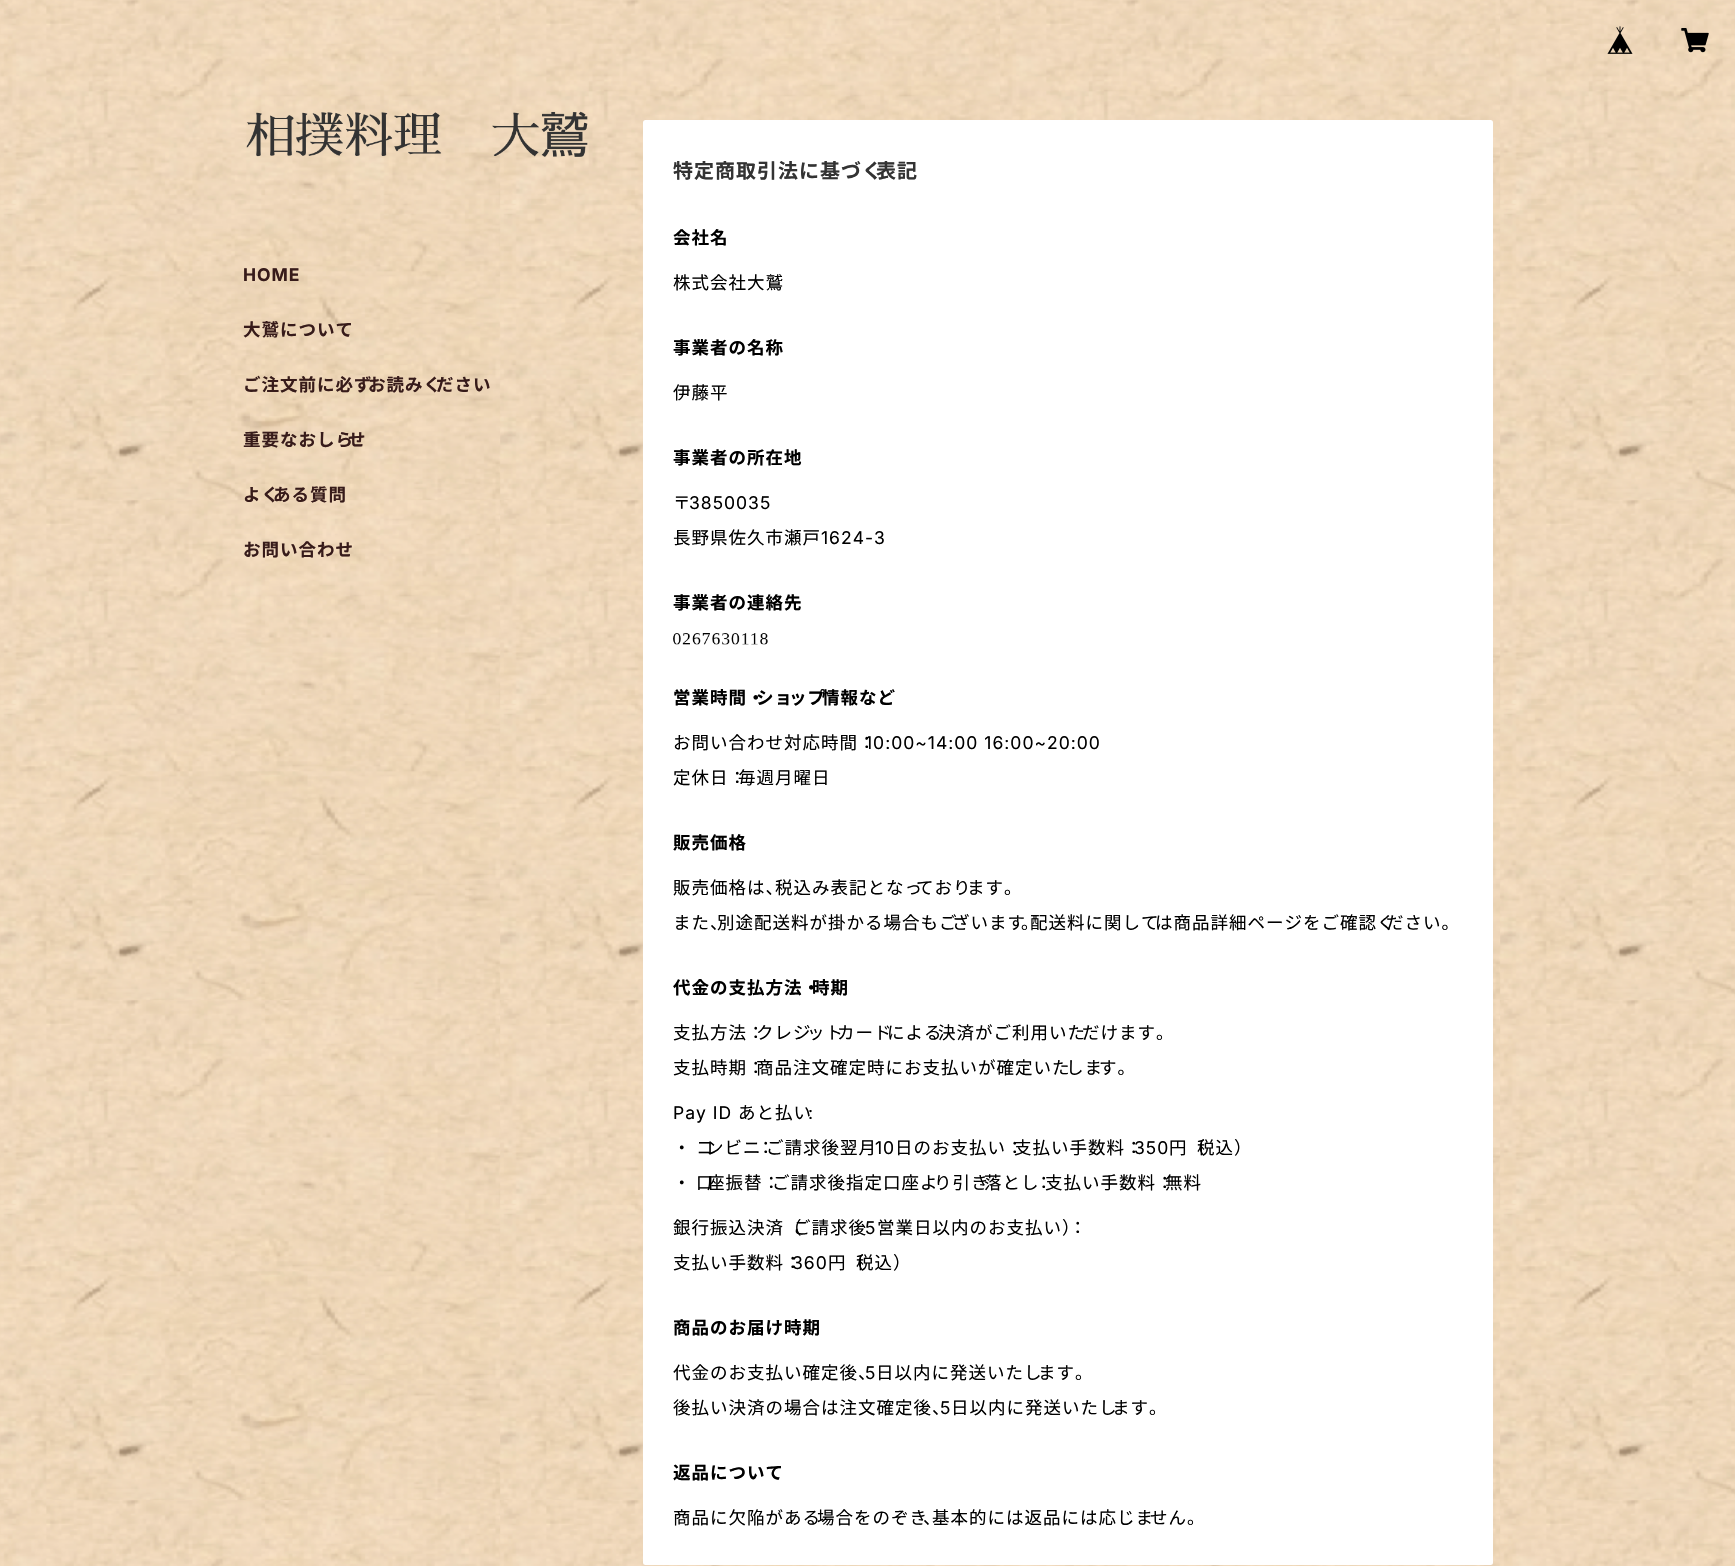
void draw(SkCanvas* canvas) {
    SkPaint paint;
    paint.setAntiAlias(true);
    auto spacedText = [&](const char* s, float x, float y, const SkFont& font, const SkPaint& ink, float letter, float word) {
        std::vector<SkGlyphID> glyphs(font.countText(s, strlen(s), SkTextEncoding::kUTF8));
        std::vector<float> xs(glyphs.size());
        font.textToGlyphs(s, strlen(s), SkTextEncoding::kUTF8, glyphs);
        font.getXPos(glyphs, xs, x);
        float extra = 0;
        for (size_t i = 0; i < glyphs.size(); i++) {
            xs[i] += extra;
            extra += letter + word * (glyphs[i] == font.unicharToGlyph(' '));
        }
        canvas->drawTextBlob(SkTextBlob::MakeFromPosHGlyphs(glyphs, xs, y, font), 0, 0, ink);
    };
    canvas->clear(0xFFFFFFFF);
    canvas->drawImageRect(SkImages::DeferredFromEncodedData(SkData::MakeFromFileName("img1.png")), SkRect::MakeXYWH(0, 0, 1735, 1566), SkSamplingOptions());
    canvas->drawImageRect(SkImages::DeferredFromEncodedData(SkData::MakeFromFileName("img2.png")), SkRect::MakeXYWH(1607, 26, 26, 28), SkSamplingOptions());
    canvas->drawImageRect(SkImages::DeferredFromEncodedData(SkData::MakeFromFileName("img3.png")), SkRect::MakeXYWH(1681, 28, 28, 25), SkSamplingOptions());
    canvas->drawImageRect(SkImages::DeferredFromEncodedData(SkData::MakeFromFileName("img4.png")), SkRect::MakeXYWH(246, 111, 342, 46), SkSamplingOptions());
    SkFont font1(fontMgr->matchFamilyStyle("Inter", SkFontStyle::Bold()), 17.5f);
    font1.setSubpixel(true);
    paint.setColor(0xFF371B1A);
    spacedText("HOME", 243, 281, font1, paint, 1, 0);
    SkFont font2(fontMgr->matchFamilyStyle("Noto Sans JP", SkFontStyle::Bold()), 17.5f);
    font2.setSubpixel(true);
    spacedText("大鷲について", 243, 336, font2, paint, 1, 0);
    spacedText("ご注文前に必ず", 243, 391, font2, paint, 1, 0);
    spacedText("お読みく", 368, 391, font2, paint, 1, 0);
    spacedText("ださい", 436, 391, font2, paint, 1, 0);
    spacedText("重要なおしら", 243, 446, font2, paint, 1, 0);
    spacedText("せ", 348, 446, font2, paint, 1, 0);
    spacedText("よく", 243, 501, font2, paint, 1, 0);
    spacedText("ある質問", 273, 501, font2, paint, 1, 0);
    spacedText("お問い合わせ", 243, 556, font2, paint, 1, 0);
    paint.setColor(0xFFFFFFFF);
    canvas->drawRoundRect(SkRect::MakeXYWH(643, 120, 850, 1445), 2.5f, 2.5f, paint);
    SkFont font3(fontMgr->matchFamilyStyle("Noto Sans JP", SkFontStyle::Bold()), 20);
    font3.setSubpixel(true);
    paint.setColor(0xFF333333);
    spacedText("特定商取引法に基づく", 673, 178, font3, paint, 1, 0);
    spacedText("表記", 876, 178, font3, paint, 1, 0);
    paint.setColor(0xFF000000);
    spacedText("会社名", 673, 244, font2, paint, 1, 0);
    SkFont font4(fontMgr->matchFamilyStyle("Noto Sans JP", SkFontStyle::Normal()), 17.5f);
    font4.setSubpixel(true);
    spacedText("株式会社大鷲", 673, 289, font4, paint, 1, 0);
    spacedText("事業者の名称", 673, 354, font2, paint, 1, 0);
    spacedText("伊藤平", 673, 399, font4, paint, 1, 0);
    spacedText("事業者の所在地", 673, 464, font2, paint, 1, 0);
    spacedText("〒", 673, 509, font4, paint, 1, 0);
    SkFont font5(fontMgr->matchFamilyStyle("Inter", SkFontStyle::Normal()), 17.5f);
    font5.setSubpixel(true);
    spacedText("3850035", 689, 509, font5, paint, 1, 0);
    spacedText("長野県佐久市瀬戸", 673, 544, font4, paint, 1, 0);
    spacedText("1624-3", 821, 544, font5, paint, 1, 0);
    spacedText("事業者の連絡先", 673, 609, font2, paint, 1, 0);
    canvas->drawImageRect(SkImages::DeferredFromEncodedData(SkData::MakeFromFileName("img5.png")), SkRect::MakeXYWH(673, 633, 95, 12), SkSamplingOptions());
    spacedText("営業時間・", 673, 704, font2, paint, 1, 0);
    spacedText("ショ", 756, 704, font2, paint, 1, 0);
    spacedText("ップ", 789, 704, font2, paint, 1, 0);
    spacedText("情報など", 822, 704, font2, paint, 1, 0);
    spacedText("お問い合わせ対応時間：", 673, 749, font4, paint, 1, 0);
    spacedText("10:00~14:00 16:00~20:00", 865, 749, font5, paint, 1, 0);
    spacedText("定休日：", 673, 784, font4, paint, 1, 0);
    spacedText("毎週月曜日", 738, 784, font4, paint, 1, 0);
    spacedText("販売価格", 673, 849, font2, paint, 1, 0);
    spacedText("販売価格は、", 673, 894, font4, paint, 1, 0);
    spacedText("税込み表記となっ", 775, 894, font4, paint, 1, 0);
    spacedText("ており", 916, 894, font4, paint, 1, 0);
    spacedText("ます。", 967, 894, font4, paint, 1, 0);
    spacedText("また、", 673, 929, font4, paint, 1, 0);
    spacedText("別途配送料が掛かる場合もご", 717, 929, font4, paint, 1, 0);
    spacedText("ざいます", 952, 929, font4, paint, 1, 0);
    spacedText("。", 1021, 929, font4, paint, 1, 0);
    spacedText("配送料に関して", 1030, 929, font4, paint, 1, 0);
    spacedText("は商品詳細ページをご確認く", 1155, 929, font4, paint, 1, 0);
    spacedText("ださい。", 1386, 929, font4, paint, 1, 0);
    spacedText("代金の支払方法・", 673, 994, font2, paint, 1, 0);
    spacedText("時期", 812, 994, font2, paint, 1, 0);
    spacedText("支払方法：", 673, 1039, font4, paint, 1, 0);
    spacedText("クレジ", 756, 1039, font4, paint, 1, 0);
    spacedText("ット", 807, 1039, font4, paint, 1, 0);
    spacedText("カード", 837, 1039, font4, paint, 1, 0);
    spacedText("による", 887, 1039, font4, paint, 1, 0);
    spacedText("決済がご利用いた", 938, 1039, font4, paint, 1, 0);
    spacedText("だけます。", 1082, 1039, font4, paint, 1, 0);
    spacedText("支払時期：", 673, 1074, font4, paint, 1, 0);
    spacedText("商品注文確定時にお支払いが確定いた", 756, 1074, font4, paint, 1, 0);
    spacedText("しま", 1066, 1074, font4, paint, 1, 0);
    spacedText("す。", 1099, 1074, font4, paint, 1, 0);
    spacedText("Pay ID", 673, 1119, font5, paint, 1, 0);
    spacedText("あと払い", 738, 1119, font4, paint, 1, 0);
    spacedText(":", 808, 1119, font5, paint, 1, 0);
    spacedText("・", 673, 1154, font4, paint, 1, 1);
    spacedText("コ", 696, 1154, font4, paint, 1, 1);
    spacedText("ンビニ", 706, 1154, font4, paint, 1, 1);
    spacedText("：", 757, 1154, font4, paint, 1, 1);
    spacedText("ご請求後翌月", 766, 1154, font4, paint, 1, 1);
    spacedText("10", 875, 1154, font5, paint, 1, 0);
    spacedText("日のお支払い：", 895, 1154, font4, paint, 1, 0);
    spacedText("支払い手数料：", 1014, 1154, font4, paint, 1, 0);
    spacedText("350", 1134, 1154, font5, paint, 1, 0);
    spacedText("円（", 1169, 1154, font4, paint, 1, 0);
    spacedText("税込）", 1197, 1154, font4, paint, 1, 0);
    spacedText("・", 673, 1189, font4, paint, 1, 1);
    spacedText("口", 696, 1189, font4, paint, 1, 1);
    spacedText("座振替：", 707, 1189, font4, paint, 1, 1);
    spacedText("ご請求後指定口座よ", 772, 1189, font4, paint, 1, 1);
    spacedText("り引き", 934, 1189, font4, paint, 1, 1);
    spacedText("落とし", 984, 1189, font4, paint, 1, 1);
    spacedText("：", 1035, 1189, font4, paint, 1, 1);
    spacedText("支払い手数料：", 1045, 1189, font4, paint, 1, 1);
    spacedText("無料", 1165, 1189, font4, paint, 1, 1);
    spacedText("銀行振込決済（", 673, 1234, font4, paint, 1, 0);
    spacedText("ご請求後", 793, 1234, font4, paint, 1, 0);
    spacedText("5", 865, 1234, font5, paint, 1, 0);
    spacedText("営業日以内のお支払い）", 877, 1234, font4, paint, 1, 0);
    spacedText("：", 1069, 1234, font4, paint, 1, 0);
    spacedText("支払い手数料：", 673, 1269, font4, paint, 1, 0);
    spacedText("360", 792, 1269, font5, paint, 1, 0);
    spacedText("円（", 828, 1269, font4, paint, 1, 0);
    spacedText("税込）", 856, 1269, font4, paint, 1, 0);
    spacedText("商品のお届け時期", 673, 1334, font2, paint, 1, 0);
    spacedText("代金のお支払い確定後、", 673, 1379, font4, paint, 1, 0);
    spacedText("5", 865, 1379, font5, paint, 1, 0);
    spacedText("日以内に発送いたし", 876, 1379, font4, paint, 1, 0);
    spacedText("ます。", 1038, 1379, font4, paint, 1, 0);
    spacedText("後払い決済の場合は注文確定後、", 673, 1414, font4, paint, 1, 0);
    spacedText("5", 940, 1414, font5, paint, 1, 0);
    spacedText("日以内に発送いたし", 951, 1414, font4, paint, 1, 0);
    spacedText("ます。", 1112, 1414, font4, paint, 1, 0);
    spacedText("返品について", 673, 1479, font2, paint, 1, 0);
    spacedText("商品に欠陥がある", 673, 1524, font4, paint, 1, 0);
    spacedText("場合をのぞき", 817, 1524, font4, paint, 1, 0);
    spacedText("、", 923, 1524, font4, paint, 1, 0);
    spacedText("基本的には返品には応じま", 932, 1524, font4, paint, 1, 0);
    spacedText("せん。", 1150, 1524, font4, paint, 1, 0);
}
